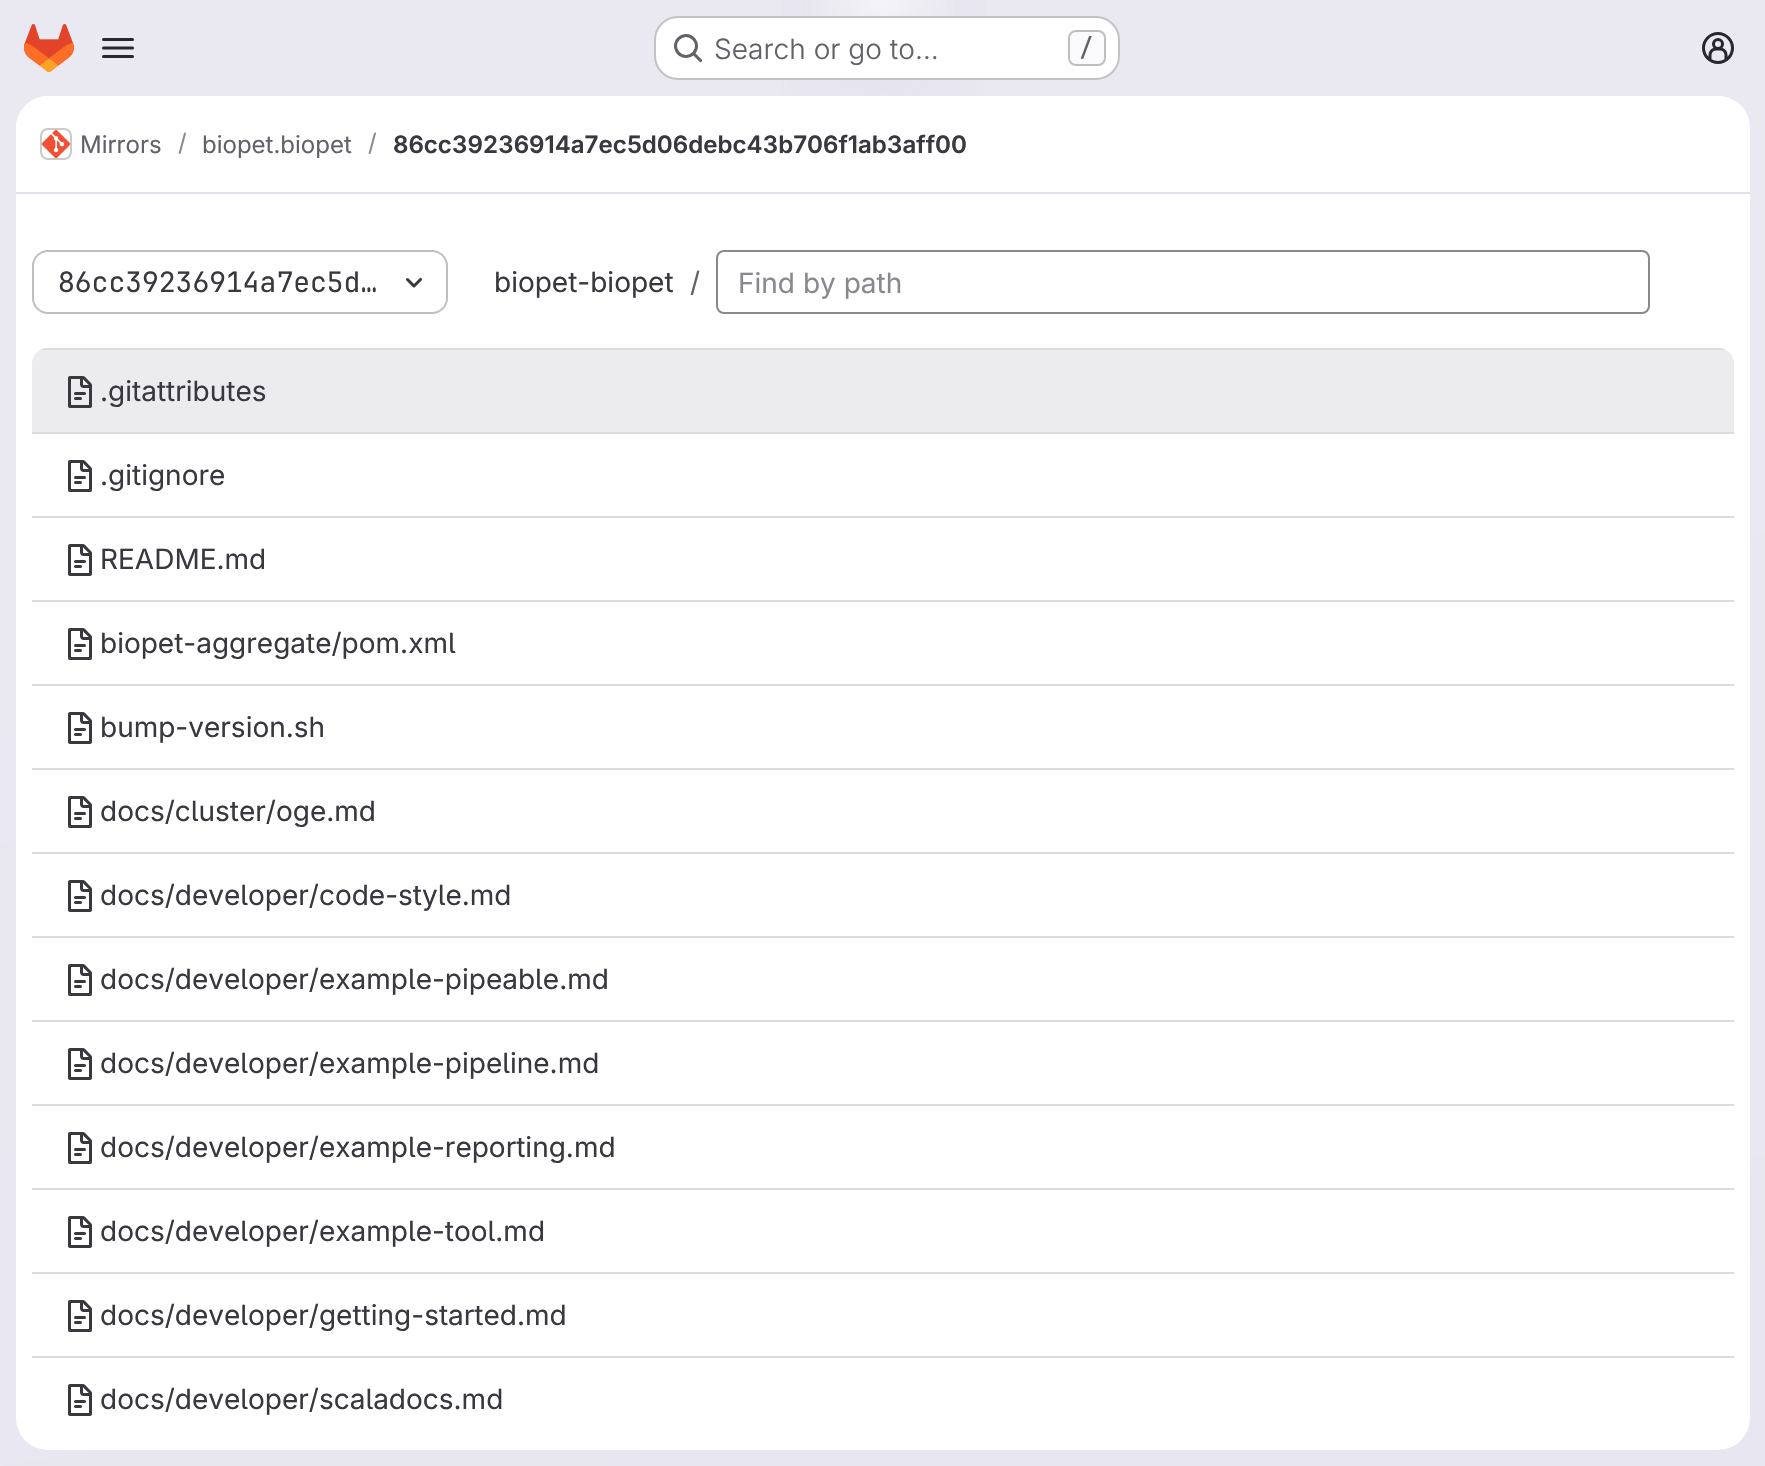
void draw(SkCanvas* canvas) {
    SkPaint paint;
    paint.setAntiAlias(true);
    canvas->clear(0xFFFFFFFF);
    {
        const SkColor colors[] = {0xFFE8E6F0, 0xFFEAE9F2};
        const float stops[] = {0, 0.7f};
        const SkPoint ends[] = {{1035, 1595}, {731, -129}};
        paint.setShader(SkGradientShader::MakeLinear(ends, colors, stops, 2, SkTileMode::kClamp));
        paint.setAlpha(255);
    }
    canvas->drawRect(SkRect::MakeXYWH(0, 0, 1765, 1466), paint);
    {
        const SkColor colors[] = {0xFFE4E2ED, 0x00E4E2ED};
        const float stops[] = {0, 0.16f};
        SkMatrix m = SkMatrix::Translate(883, 0).preScale(883, 1466);
        paint.setShader(SkGradientShader::MakeRadial({0, 0}, 1, colors, stops, 2, SkTileMode::kClamp, 0, &m));
        paint.setAlpha(255);
    }
    canvas->drawRect(SkRect::MakeXYWH(781, 0, 204, 96), paint);
    {
        const SkColor colors[] = {0xFFE4E2EC, 0x00E4E2EC};
        const float stops[] = {0, 0.11f};
        SkMatrix m = SkMatrix::Translate(883, 0).preScale(883, 1466);
        paint.setShader(SkGradientShader::MakeRadial({0, 0}, 1, colors, stops, 2, SkTileMode::kClamp, 0, &m));
        paint.setAlpha(255);
    }
    canvas->drawRect(SkRect::MakeXYWH(843, 10, 80, 43), paint);
    {
        const SkColor colors[] = {0x99FFFFFF, 0x00FFFFFF};
        const float stops[] = {0, 0.05f};
        paint.setShader(SkGradientShader::MakeRadial({883, 0}, 1711, colors, stops, 2, SkTileMode::kClamp));
        paint.setAlpha(255);
    }
    canvas->drawRect(SkRect::MakeXYWH(811, 0, 144, 16), paint);
    canvas->drawImageRect(SkImages::DeferredFromEncodedData(SkData::MakeFromFileName("img1.png")), SkRect::MakeXYWH(24, 24, 50, 48), SkSamplingOptions());
    canvas->drawImageRect(SkImages::DeferredFromEncodedData(SkData::MakeFromFileName("img2.png")), SkRect::MakeXYWH(102, 38, 32, 20), SkSamplingOptions());
    paint.setShader(nullptr);
    paint.setColor(0xFFFFFFFF);
    canvas->drawRoundRect(SkRect::MakeXYWH(654, 16, 466, 64), 24, 24, paint);
    paint.setStyle(SkPaint::kStroke_Style);
    paint.setStrokeWidth(2);
    paint.setColor(0x3D050506);
    canvas->drawRoundRect(SkRect::MakeXYWH(655, 17, 464, 62), 23, 23, paint);
    canvas->drawImageRect(SkImages::DeferredFromEncodedData(SkData::MakeFromFileName("img3.png")), SkRect::MakeXYWH(674, 34, 29, 29), SkSamplingOptions());
    SkFont font1(fontMgr->matchFamilyStyle("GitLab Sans", SkFontStyle(300, SkFontStyle::kNormal_Width, SkFontStyle::kUpright_Slant)), 28);
    font1.setSubpixel(true);
    paint.setStyle(SkPaint::kFill_Style);
    paint.setColor(0xFF626168);
    canvas->drawString("Search or go to…", 714, 59, font1, paint);
    paint.setColor(0xFFFBFAFD);
    canvas->drawRoundRect(SkRect::MakeXYWH(1069, 31, 36, 34), 7, 7, paint);
    paint.setStyle(SkPaint::kStroke_Style);
    paint.setColor(0xFFBFBFC3);
    canvas->drawRoundRect(SkRect::MakeXYWH(1069, 31, 36, 34), 7, 7, paint);
    SkFont font2(fontMgr->matchFamilyStyle("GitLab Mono", SkFontStyle(500, SkFontStyle::kNormal_Width, SkFontStyle::kUpright_Slant)), 24);
    font2.setSubpixel(true);
    paint.setStyle(SkPaint::kFill_Style);
    paint.setColor(0xFF626168);
    canvas->drawString("/", 1079, 56, font2, paint);
    canvas->drawImageRect(SkImages::DeferredFromEncodedData(SkData::MakeFromFileName("img4.png")), SkRect::MakeXYWH(1702, 32, 32, 32), SkSamplingOptions());
    paint.setColor(0xFFFFFFFF);
    canvas->drawRoundRect(SkRect::MakeXYWH(16, 96, 1734, 1354), 32, 32, paint);
    canvas->drawPath(SkPathBuilder().moveTo(48, 96).lineTo(1718, 96).cubicTo(1735.5f, 96, 1750, 110.5f, 1750, 128).lineTo(1750, 194).lineTo(16, 194).lineTo(16, 128).cubicTo(16, 110.5f, 30.5f, 96, 48, 96).close().detach(), paint);
    paint.setColor(0xFFE1DFEC);
    canvas->drawRect(SkRect::MakeXYWH(16, 192, 1734, 2), paint);
    paint.setStyle(SkPaint::kStroke_Style);
    paint.setColor(0xFFDCDCDE);
    canvas->drawRoundRect(SkRect::MakeXYWH(41, 129, 30, 30), 7, 7, paint);
    canvas->drawImageRect(SkImages::DeferredFromEncodedData(SkData::MakeFromFileName("img5.png")), SkRect::MakeXYWH(42, 130, 28, 28), SkSamplingOptions());
    paint.setColor(0x14050506);
    canvas->drawRoundRect(SkRect::MakeXYWH(41, 129, 30, 30), 7, 7, paint);
    SkFont font3(fontMgr->matchFamilyStyle("GitLab Sans", SkFontStyle::Normal()), 24);
    font3.setSubpixel(true);
    paint.setStyle(SkPaint::kFill_Style);
    paint.setColor(0xFF626168);
    canvas->drawString("Mirrors", 80, 153, font3, paint);
    paint.setColor(0xFF89888D);
    canvas->drawString("/", 178, 151, font3, paint);
    paint.setColor(0xFF626168);
    canvas->drawString("biopet.biopet", 202, 153, font3, paint);
    paint.setColor(0xFF89888D);
    canvas->drawString("/", 368, 151, font3, paint);
    SkFont font4(fontMgr->matchFamilyStyle("GitLab Sans", SkFontStyle(600, SkFontStyle::kNormal_Width, SkFontStyle::kUpright_Slant)), 24);
    font4.setSubpixel(true);
    paint.setColor(0xFF3A383F);
    canvas->drawString("86cc39236914a7ec5d06debc43b706f1ab3aff00", 393, 153, font4, paint);
    paint.setStyle(SkPaint::kStroke_Style);
    paint.setColor(0xFFBFBFC3);
    canvas->drawRoundRect(SkRect::MakeXYWH(33, 251, 414, 62), 15, 15, paint);
    SkFont font5(fontMgr->matchFamilyStyle("GitLab Mono", SkFontStyle::Normal()), 28);
    font5.setSubpixel(true);
    paint.setStyle(SkPaint::kFill_Style);
    paint.setColor(0xFF3A383F);
    canvas->drawString("86cc39236914a7ec5d…", 58, 292, font5, paint);
    canvas->drawImageRect(SkImages::DeferredFromEncodedData(SkData::MakeFromFileName("img6.png")), SkRect::MakeXYWH(406, 277, 17, 11), SkSamplingOptions());
    SkFont font6(fontMgr->matchFamilyStyle("GitLab Sans", SkFontStyle::Normal()), 28);
    font6.setSubpixel(true);
    canvas->drawString("biopet-biopet", 494, 292, font6, paint);
    paint.setColor(0xFF626168);
    canvas->drawString("/", 690, 292, font6, paint);
    paint.setStyle(SkPaint::kStroke_Style);
    paint.setColor(0xFF89888D);
    canvas->drawRoundRect(SkRect::MakeXYWH(717, 251, 932, 62), 7, 7, paint);
    paint.setStyle(SkPaint::kFill_Style);
    canvas->drawString("Find by path", 738, 293, font6, paint);
    paint.setColor(0xFFECECEF);
    canvas->drawPath(SkPathBuilder().moveTo(48, 348).lineTo(1718, 348).cubicTo(1727, 348, 1734, 355, 1734, 364).lineTo(1734, 432).lineTo(32, 432).lineTo(32, 364).cubicTo(32, 355, 39, 348, 48, 348).close().detach(), paint);
    canvas->save();
    canvas->clipPath(SkPathBuilder().moveTo(48, 348).lineTo(1718, 348).cubicTo(1727, 348, 1734, 355, 1734, 364).lineTo(1734, 2012).cubicTo(1734, 2021, 1727, 2028, 1718, 2028).lineTo(48, 2028).cubicTo(39, 2028, 32, 2021, 32, 2012).lineTo(32, 364).cubicTo(32, 355, 39, 348, 48, 348).close().detach(), true);
    paint.setColor(0xFFDCDCDE);
    canvas->drawRect(SkRect::MakeXYWH(32, 348, 1702, 2), paint);
    canvas->restore();
    canvas->drawImageRect(SkImages::DeferredFromEncodedData(SkData::MakeFromFileName("img7.png")), SkRect::MakeXYWH(68, 376, 24, 32), SkSamplingOptions());
    paint.setColor(0xFF3A383F);
    canvas->drawString(".gitattributes", 100, 401, font6, paint);
    paint.setColor(0xFFDCDCDE);
    canvas->drawRect(SkRect::MakeXYWH(32, 432, 1702, 2), paint);
    canvas->drawImageRect(SkImages::DeferredFromEncodedData(SkData::MakeFromFileName("img8.png")), SkRect::MakeXYWH(68, 460, 24, 32), SkSamplingOptions());
    paint.setColor(0xFF3A383F);
    canvas->drawString(".gitignore", 100, 485, font6, paint);
    paint.setColor(0xFFDCDCDE);
    canvas->drawRect(SkRect::MakeXYWH(32, 516, 1702, 2), paint);
    canvas->drawImageRect(SkImages::DeferredFromEncodedData(SkData::MakeFromFileName("img9.png")), SkRect::MakeXYWH(68, 544, 24, 32), SkSamplingOptions());
    paint.setColor(0xFF3A383F);
    canvas->drawString("README.md", 100, 569, font6, paint);
    paint.setColor(0xFFDCDCDE);
    canvas->drawRect(SkRect::MakeXYWH(32, 600, 1702, 2), paint);
    canvas->drawImageRect(SkImages::DeferredFromEncodedData(SkData::MakeFromFileName("img9.png")), SkRect::MakeXYWH(68, 628, 24, 32), SkSamplingOptions());
    paint.setColor(0xFF3A383F);
    canvas->drawString("biopet-aggregate/pom.xml", 100, 653, font6, paint);
    paint.setColor(0xFFDCDCDE);
    canvas->drawRect(SkRect::MakeXYWH(32, 684, 1702, 2), paint);
    canvas->drawImageRect(SkImages::DeferredFromEncodedData(SkData::MakeFromFileName("img9.png")), SkRect::MakeXYWH(68, 712, 24, 32), SkSamplingOptions());
    paint.setColor(0xFF3A383F);
    canvas->drawString("bump-version.sh", 100, 737, font6, paint);
    paint.setColor(0xFFDCDCDE);
    canvas->drawRect(SkRect::MakeXYWH(32, 768, 1702, 2), paint);
    canvas->drawImageRect(SkImages::DeferredFromEncodedData(SkData::MakeFromFileName("img9.png")), SkRect::MakeXYWH(68, 796, 24, 32), SkSamplingOptions());
    paint.setColor(0xFF3A383F);
    canvas->drawString("docs/cluster/oge.md", 100, 821, font6, paint);
    paint.setColor(0xFFDCDCDE);
    canvas->drawRect(SkRect::MakeXYWH(32, 852, 1702, 2), paint);
    canvas->drawImageRect(SkImages::DeferredFromEncodedData(SkData::MakeFromFileName("img9.png")), SkRect::MakeXYWH(68, 880, 24, 32), SkSamplingOptions());
    paint.setColor(0xFF3A383F);
    canvas->drawString("docs/developer/code-style.md", 100, 905, font6, paint);
    paint.setColor(0xFFDCDCDE);
    canvas->drawRect(SkRect::MakeXYWH(32, 936, 1702, 2), paint);
    canvas->drawImageRect(SkImages::DeferredFromEncodedData(SkData::MakeFromFileName("img9.png")), SkRect::MakeXYWH(68, 964, 24, 32), SkSamplingOptions());
    paint.setColor(0xFF3A383F);
    canvas->drawString("docs/developer/example-pipeable.md", 100, 989, font6, paint);
    paint.setColor(0xFFDCDCDE);
    canvas->drawRect(SkRect::MakeXYWH(32, 1020, 1702, 2), paint);
    canvas->drawImageRect(SkImages::DeferredFromEncodedData(SkData::MakeFromFileName("img9.png")), SkRect::MakeXYWH(68, 1048, 24, 32), SkSamplingOptions());
    paint.setColor(0xFF3A383F);
    canvas->drawString("docs/developer/example-pipeline.md", 100, 1073, font6, paint);
    paint.setColor(0xFFDCDCDE);
    canvas->drawRect(SkRect::MakeXYWH(32, 1104, 1702, 2), paint);
    canvas->drawImageRect(SkImages::DeferredFromEncodedData(SkData::MakeFromFileName("img9.png")), SkRect::MakeXYWH(68, 1132, 24, 32), SkSamplingOptions());
    paint.setColor(0xFF3A383F);
    canvas->drawString("docs/developer/example-reporting.md", 100, 1157, font6, paint);
    paint.setColor(0xFFDCDCDE);
    canvas->drawRect(SkRect::MakeXYWH(32, 1188, 1702, 2), paint);
    canvas->drawImageRect(SkImages::DeferredFromEncodedData(SkData::MakeFromFileName("img9.png")), SkRect::MakeXYWH(68, 1216, 24, 32), SkSamplingOptions());
    paint.setColor(0xFF3A383F);
    canvas->drawString("docs/developer/example-tool.md", 100, 1241, font6, paint);
    paint.setColor(0xFFDCDCDE);
    canvas->drawRect(SkRect::MakeXYWH(32, 1272, 1702, 2), paint);
    canvas->drawImageRect(SkImages::DeferredFromEncodedData(SkData::MakeFromFileName("img9.png")), SkRect::MakeXYWH(68, 1300, 24, 32), SkSamplingOptions());
    paint.setColor(0xFF3A383F);
    canvas->drawString("docs/developer/getting-started.md", 100, 1325, font6, paint);
    paint.setColor(0xFFDCDCDE);
    canvas->drawRect(SkRect::MakeXYWH(32, 1356, 1702, 2), paint);
    canvas->drawImageRect(SkImages::DeferredFromEncodedData(SkData::MakeFromFileName("img9.png")), SkRect::MakeXYWH(68, 1384, 24, 32), SkSamplingOptions());
    paint.setColor(0xFF3A383F);
    canvas->drawString("docs/developer/scaladocs.md", 100, 1409, font6, paint);
}
